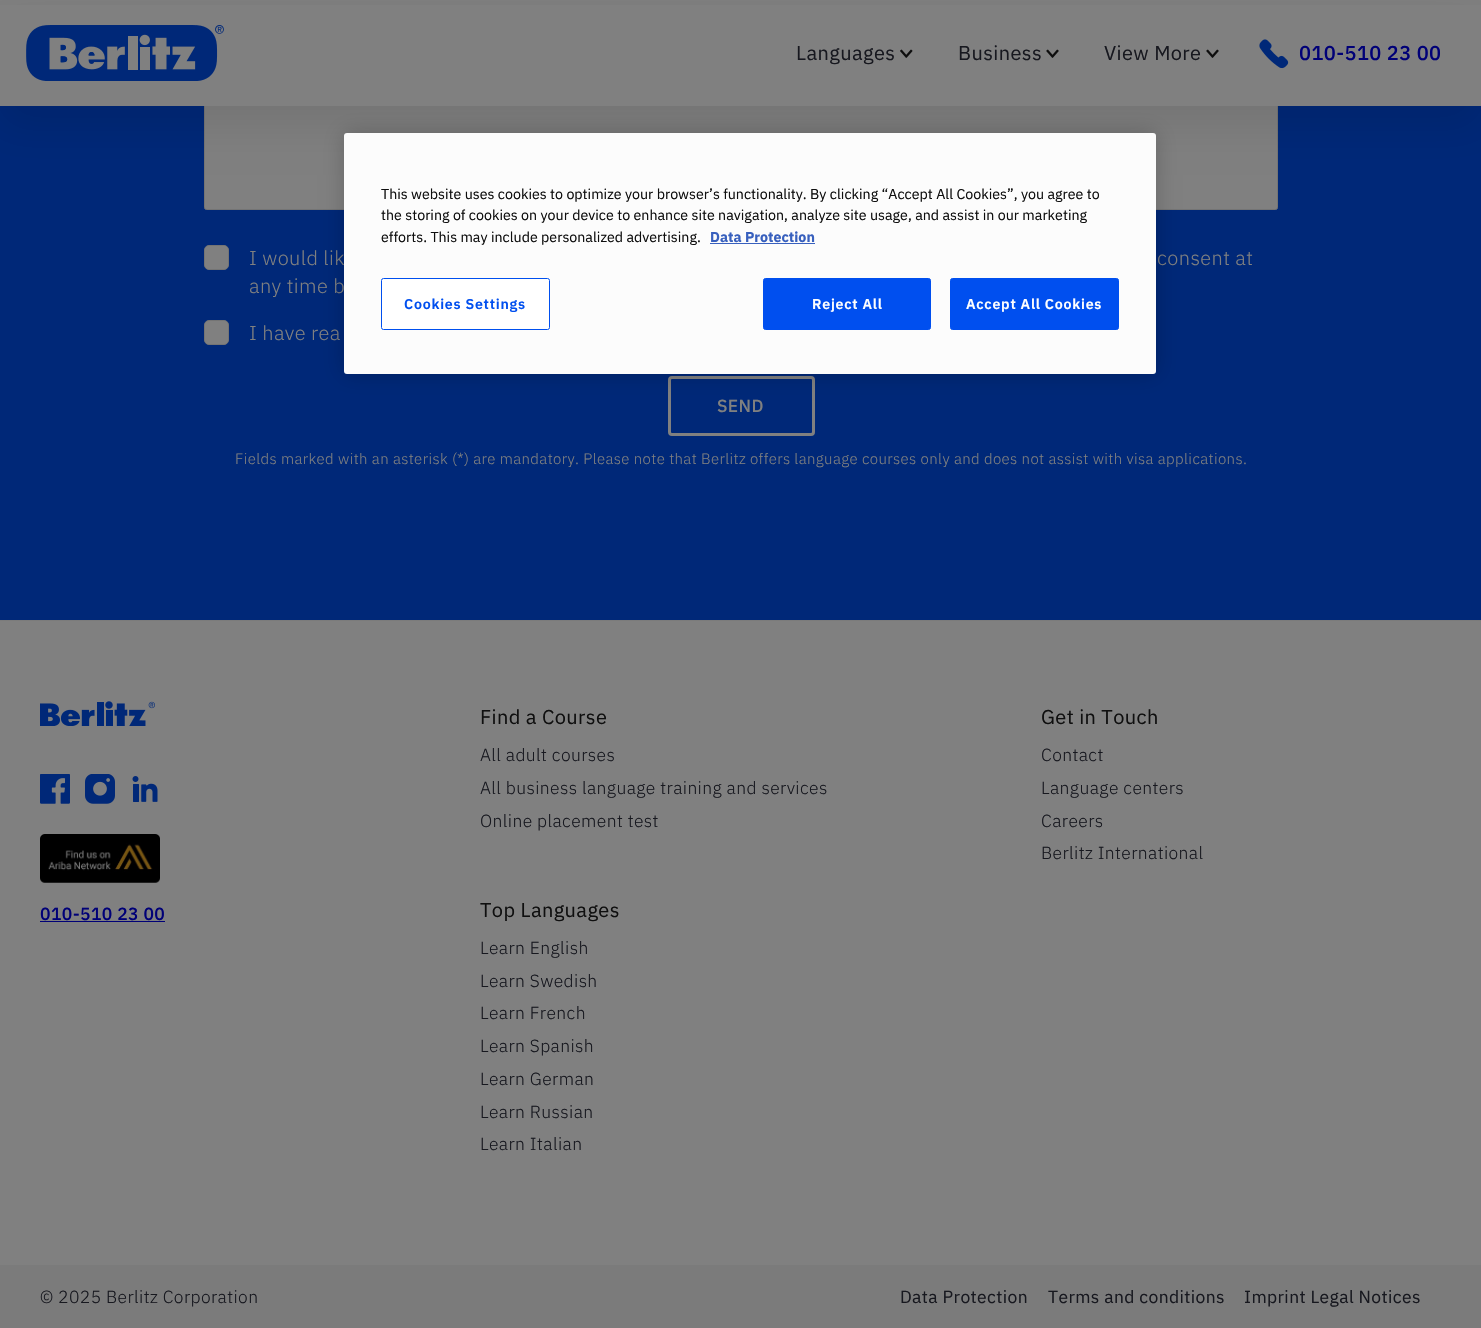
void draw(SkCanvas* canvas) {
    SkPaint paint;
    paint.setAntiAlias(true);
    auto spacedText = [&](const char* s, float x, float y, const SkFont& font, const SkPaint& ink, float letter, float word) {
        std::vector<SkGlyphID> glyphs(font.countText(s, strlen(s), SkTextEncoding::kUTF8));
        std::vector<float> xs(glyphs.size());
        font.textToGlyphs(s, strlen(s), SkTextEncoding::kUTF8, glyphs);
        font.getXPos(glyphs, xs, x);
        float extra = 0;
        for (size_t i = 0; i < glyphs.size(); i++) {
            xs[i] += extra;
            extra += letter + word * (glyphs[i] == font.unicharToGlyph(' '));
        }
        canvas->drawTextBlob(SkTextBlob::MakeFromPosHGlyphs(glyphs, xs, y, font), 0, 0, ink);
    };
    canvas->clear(0xFF808080);
    paint.setColor(0xFF002878);
    canvas->drawRect(SkRect::MakeXYWH(0, 106, 1481, 514), paint);
    paint.setColor(0xFF808080);
    canvas->drawRoundRect(SkRect::MakeXYWH(204.5f, 10.5f, 1073, 199), 2, 2, paint);
    paint.setStyle(SkPaint::kStroke_Style);
    paint.setStrokeWidth(1);
    paint.setColor(0xFF747474);
    canvas->drawRoundRect(SkRect::MakeXYWH(204.5f, 10.5f, 1073, 199), 2, 2, paint);
    paint.setStyle(SkPaint::kFill_Style);
    paint.setColor(0x17000000);
    paint.setMaskFilter(SkMaskFilter::MakeBlur(kNormal_SkBlurStyle, 20));
    canvas->drawRect(SkRect::MakeXYWH(0, 20, 1481, 106), paint);
    paint.setMaskFilter(nullptr);
    paint.setColor(0xFF808080);
    canvas->drawRect(SkRect::MakeXYWH(0, 5, 1481, 101), paint);
    canvas->drawImageRect(SkImages::DeferredFromEncodedData(SkData::MakeFromFileName("img1.png")), SkRect::MakeXYWH(26, 25, 198, 56), SkSamplingOptions());
    SkFont font1(fontMgr->matchFamilyStyle("IBM Plex Sans", SkFontStyle::Normal()), 20);
    font1.setSubpixel(true);
    paint.setColor(0xFF17181F);
    spacedText("Languages", 796, 60, font1, paint, 0.38f, 0);
    canvas->drawImageRect(SkImages::DeferredFromEncodedData(SkData::MakeFromFileName("img2.png")), SkRect::MakeXYWH(900, 49, 13, 9), SkSamplingOptions());
    spacedText("Business", 958, 60, font1, paint, 0.38f, 0);
    canvas->drawImageRect(SkImages::DeferredFromEncodedData(SkData::MakeFromFileName("img3.png")), SkRect::MakeXYWH(1046, 49, 13, 9), SkSamplingOptions());
    spacedText("View More", 1104, 60, font1, paint, 0.38f, 0);
    canvas->drawImageRect(SkImages::DeferredFromEncodedData(SkData::MakeFromFileName("img3.png")), SkRect::MakeXYWH(1206, 49, 13, 9), SkSamplingOptions());
    canvas->drawImageRect(SkImages::DeferredFromEncodedData(SkData::MakeFromFileName("img4.png")), SkRect::MakeXYWH(1259, 39, 30, 30), SkSamplingOptions());
    SkFont font2(fontMgr->matchFamilyStyle("IBM Plex Sans", SkFontStyle(500, SkFontStyle::kNormal_Width, SkFontStyle::kUpright_Slant)), 20);
    font2.setSubpixel(true);
    paint.setColor(0xFF000077);
    spacedText("010-510 23 00", 1299, 60, font2, paint, 0.38f, 0);
    paint.setColor(0xFF808080);
    canvas->drawRoundRect(SkRect::MakeXYWH(204.5f, 245.5f, 24, 24), 4.5f, 4.5f, paint);
    paint.setStyle(SkPaint::kStroke_Style);
    paint.setColor(0xFF747474);
    canvas->drawRoundRect(SkRect::MakeXYWH(204.5f, 245.5f, 24, 24), 4.5f, 4.5f, paint);
    SkFont font3(fontMgr->matchFamilyStyle("IBM Plex Sans", SkFontStyle(300, SkFontStyle::kNormal_Width, SkFontStyle::kUpright_Slant)), 20);
    font3.setSubpixel(true);
    paint.setStyle(SkPaint::kFill_Style);
    paint.setColor(0xFF808080);
    spacedText("I would lik", 249, 265, font3, paint, 0.38f, 0);
    spacedText("consent at", 1157, 265, font3, paint, 0.38f, 0);
    spacedText("any time b", 249, 293, font3, paint, 0.38f, 0);
    canvas->drawRoundRect(SkRect::MakeXYWH(204.5f, 320.5f, 24, 24), 4.5f, 4.5f, paint);
    paint.setStyle(SkPaint::kStroke_Style);
    paint.setColor(0xFF747474);
    canvas->drawRoundRect(SkRect::MakeXYWH(204.5f, 320.5f, 24, 24), 4.5f, 4.5f, paint);
    paint.setStyle(SkPaint::kFill_Style);
    paint.setColor(0xFF808080);
    spacedText("I have rea", 249, 340, font3, paint, 0.38f, 0);
    paint.setStyle(SkPaint::kStroke_Style);
    paint.setStrokeWidth(3);
    canvas->drawRoundRect(SkRect::MakeXYWH(669.5f, 377.5f, 144, 57), 2.5f, 2.5f, paint);
    SkFont font4(fontMgr->matchFamilyStyle("IBM Plex Sans", SkFontStyle(500, SkFontStyle::kNormal_Width, SkFontStyle::kUpright_Slant)), 17.5f);
    font4.setSubpixel(true);
    paint.setStyle(SkPaint::kFill_Style);
    spacedText("SEND", 717, 412, font4, paint, 0.38f, 0);
    SkFont font5(fontMgr->matchFamilyStyle("IBM Plex Sans", SkFontStyle(300, SkFontStyle::kNormal_Width, SkFontStyle::kUpright_Slant)), 15);
    font5.setSubpixel(true);
    spacedText("Fields marked with an asterisk (*) are mandatory. Please note that Berlitz offers language courses only and does not assist with visa applications.", 235, 464, font5, paint, 0.38f, 0);
    paint.setColor(0xFF7B7B7B);
    canvas->drawRect(SkRect::MakeXYWH(0, 620, 1481, 1), paint);
    canvas->drawImageRect(SkImages::DeferredFromEncodedData(SkData::MakeFromFileName("img5.png")), SkRect::MakeXYWH(40, 701, 115, 25), SkSamplingOptions());
    canvas->drawImageRect(SkImages::DeferredFromEncodedData(SkData::MakeFromFileName("img6.png")), SkRect::MakeXYWH(40, 774, 30, 30), SkSamplingOptions());
    canvas->drawImageRect(SkImages::DeferredFromEncodedData(SkData::MakeFromFileName("img7.png")), SkRect::MakeXYWH(85, 774, 30, 30), SkSamplingOptions());
    canvas->drawImageRect(SkImages::DeferredFromEncodedData(SkData::MakeFromFileName("img8.png")), SkRect::MakeXYWH(132, 776, 26, 26), SkSamplingOptions());
    canvas->drawImageRect(SkImages::DeferredFromEncodedData(SkData::MakeFromFileName("img9.png")), SkRect::MakeXYWH(40, 834, 120, 49), SkSamplingOptions());
    paint.setColor(0xFF000077);
    spacedText("010-510 23 00", 40, 920, font4, paint, 0.38f, 0);
    canvas->drawRect(SkRect::MakeXYWH(40, 921, 125, 1), paint);
    paint.setColor(0xFF0F0F0F);
    spacedText("Find a Course", 480, 724, font1, paint, 0.38f, 0);
    SkFont font6(fontMgr->matchFamilyStyle("IBM Plex Sans", SkFontStyle(300, SkFontStyle::kNormal_Width, SkFontStyle::kUpright_Slant)), 17.5f);
    font6.setSubpixel(true);
    paint.setColor(0xFF17181F);
    spacedText("All adult courses", 480, 761, font6, paint, 0.38f, 0);
    spacedText("All business language training and services", 480, 794, font6, paint, 0.38f, 0);
    spacedText("Online placement test", 480, 827, font6, paint, 0.38f, 0);
    paint.setColor(0xFF0F0F0F);
    spacedText("Get in Touch", 1041, 724, font1, paint, 0.38f, 0);
    paint.setColor(0xFF17181F);
    spacedText("Contact", 1041, 761, font6, paint, 0.38f, 0);
    spacedText("Language centers", 1041, 794, font6, paint, 0.38f, 0);
    spacedText("Careers", 1041, 827, font6, paint, 0.38f, 0);
    spacedText("Berlitz International", 1041, 859, font6, paint, 0.38f, 0);
    paint.setColor(0xFF0F0F0F);
    spacedText("Top Languages", 480, 917, font1, paint, 0.38f, 0);
    paint.setColor(0xFF17181F);
    spacedText("Learn English", 480, 954, font6, paint, 0.38f, 0);
    spacedText("Learn Swedish", 480, 987, font6, paint, 0.38f, 0);
    spacedText("Learn French", 480, 1019, font6, paint, 0.38f, 0);
    spacedText("Learn Spanish", 480, 1052, font6, paint, 0.38f, 0);
    spacedText("Learn German", 480, 1085, font6, paint, 0.38f, 0);
    spacedText("Learn Russian", 480, 1118, font6, paint, 0.38f, 0);
    spacedText("Learn Italian", 480, 1150, font6, paint, 0.38f, 0);
    paint.setColor(0xFF7B7B7B);
    canvas->drawRect(SkRect::MakeXYWH(0, 1265, 1481, 63), paint);
    paint.setColor(0xFF17181F);
    spacedText("© 2025 Berlitz Corporation", 40, 1303, font6, paint, 0.38f, 0);
    SkFont font7(fontMgr->matchFamilyStyle("IBM Plex Sans", SkFontStyle::Normal()), 17.5f);
    font7.setSubpixel(true);
    spacedText("Data Protection", 900, 1303, font7, paint, 0.38f, 0);
    spacedText("Terms and conditions", 1048, 1303, font7, paint, 0.38f, 0);
    spacedText("Imprint Legal Notices", 1244, 1303, font7, paint, 0.38f, 0);
    paint.setColor(0x33000000);
    paint.setMaskFilter(SkMaskFilter::MakeBlur(kNormal_SkBlurStyle, 11));
    canvas->drawRoundRect(SkRect::MakeXYWH(344, 133, 812, 241), 3, 3, paint);
    paint.setMaskFilter(nullptr);
    paint.setColor(0xFFFCFCFC);
    canvas->drawRoundRect(SkRect::MakeXYWH(344, 133, 812, 241), 3, 3, paint);
    SkFont font8(fontMgr->matchFamilyStyle("IBM Plex Sans", SkFontStyle::Normal()), 14.23f);
    font8.setSubpixel(true);
    paint.setColor(0xFF0F0F0F);
    canvas->drawString("This website uses cookies to optimize your browser’s functionality. By clicking “Accept All Cookies”, you agree to", 381, 199, font8, paint);
    canvas->drawString("the storing of cookies on your device to enhance site navigation, analyze site usage, and assist in our marketing", 381, 220, font8, paint);
    canvas->drawString("efforts. This may include personalized advertising.", 381, 242, font8, paint);
    SkFont font9(fontMgr->matchFamilyStyle("IBM Plex Sans", SkFontStyle::Bold()), 14.23f);
    font9.setSubpixel(true);
    paint.setColor(0xFF3860BE);
    canvas->drawString("Data Protection", 710, 242, font9, paint);
    canvas->drawRect(SkRect::MakeXYWH(710, 243, 105, 1), paint);
    paint.setColor(0xFFFFFFFF);
    canvas->drawRoundRect(SkRect::MakeXYWH(381.5f, 278.5f, 168, 51), 2, 2, paint);
    paint.setStyle(SkPaint::kStroke_Style);
    paint.setStrokeWidth(1);
    paint.setColor(0xFF004FEF);
    canvas->drawRoundRect(SkRect::MakeXYWH(381.5f, 278.5f, 168, 51), 2, 2, paint);
    SkFont font10(fontMgr->matchFamilyStyle("IBM Plex Sans", SkFontStyle(600, SkFontStyle::kNormal_Width, SkFontStyle::kUpright_Slant)), 14.23f);
    font10.setSubpixel(true);
    paint.setStyle(SkPaint::kFill_Style);
    spacedText("Cookies Settings", 404, 309, font10, paint, 0.75f, 0);
    canvas->drawRoundRect(SkRect::MakeXYWH(763.5f, 278.5f, 167, 51), 2, 2, paint);
    paint.setStyle(SkPaint::kStroke_Style);
    canvas->drawRoundRect(SkRect::MakeXYWH(763.5f, 278.5f, 167, 51), 2, 2, paint);
    paint.setStyle(SkPaint::kFill_Style);
    paint.setColor(0xFFFFFFFF);
    spacedText("Reject All", 812, 309, font10, paint, 0.75f, 0);
    paint.setColor(0xFF004FEF);
    canvas->drawRoundRect(SkRect::MakeXYWH(950.5f, 278.5f, 168, 51), 2, 2, paint);
    paint.setStyle(SkPaint::kStroke_Style);
    canvas->drawRoundRect(SkRect::MakeXYWH(950.5f, 278.5f, 168, 51), 2, 2, paint);
    paint.setStyle(SkPaint::kFill_Style);
    paint.setColor(0xFFFFFFFF);
    spacedText("Accept All Cookies", 966, 309, font10, paint, 0.75f, 0);
}
